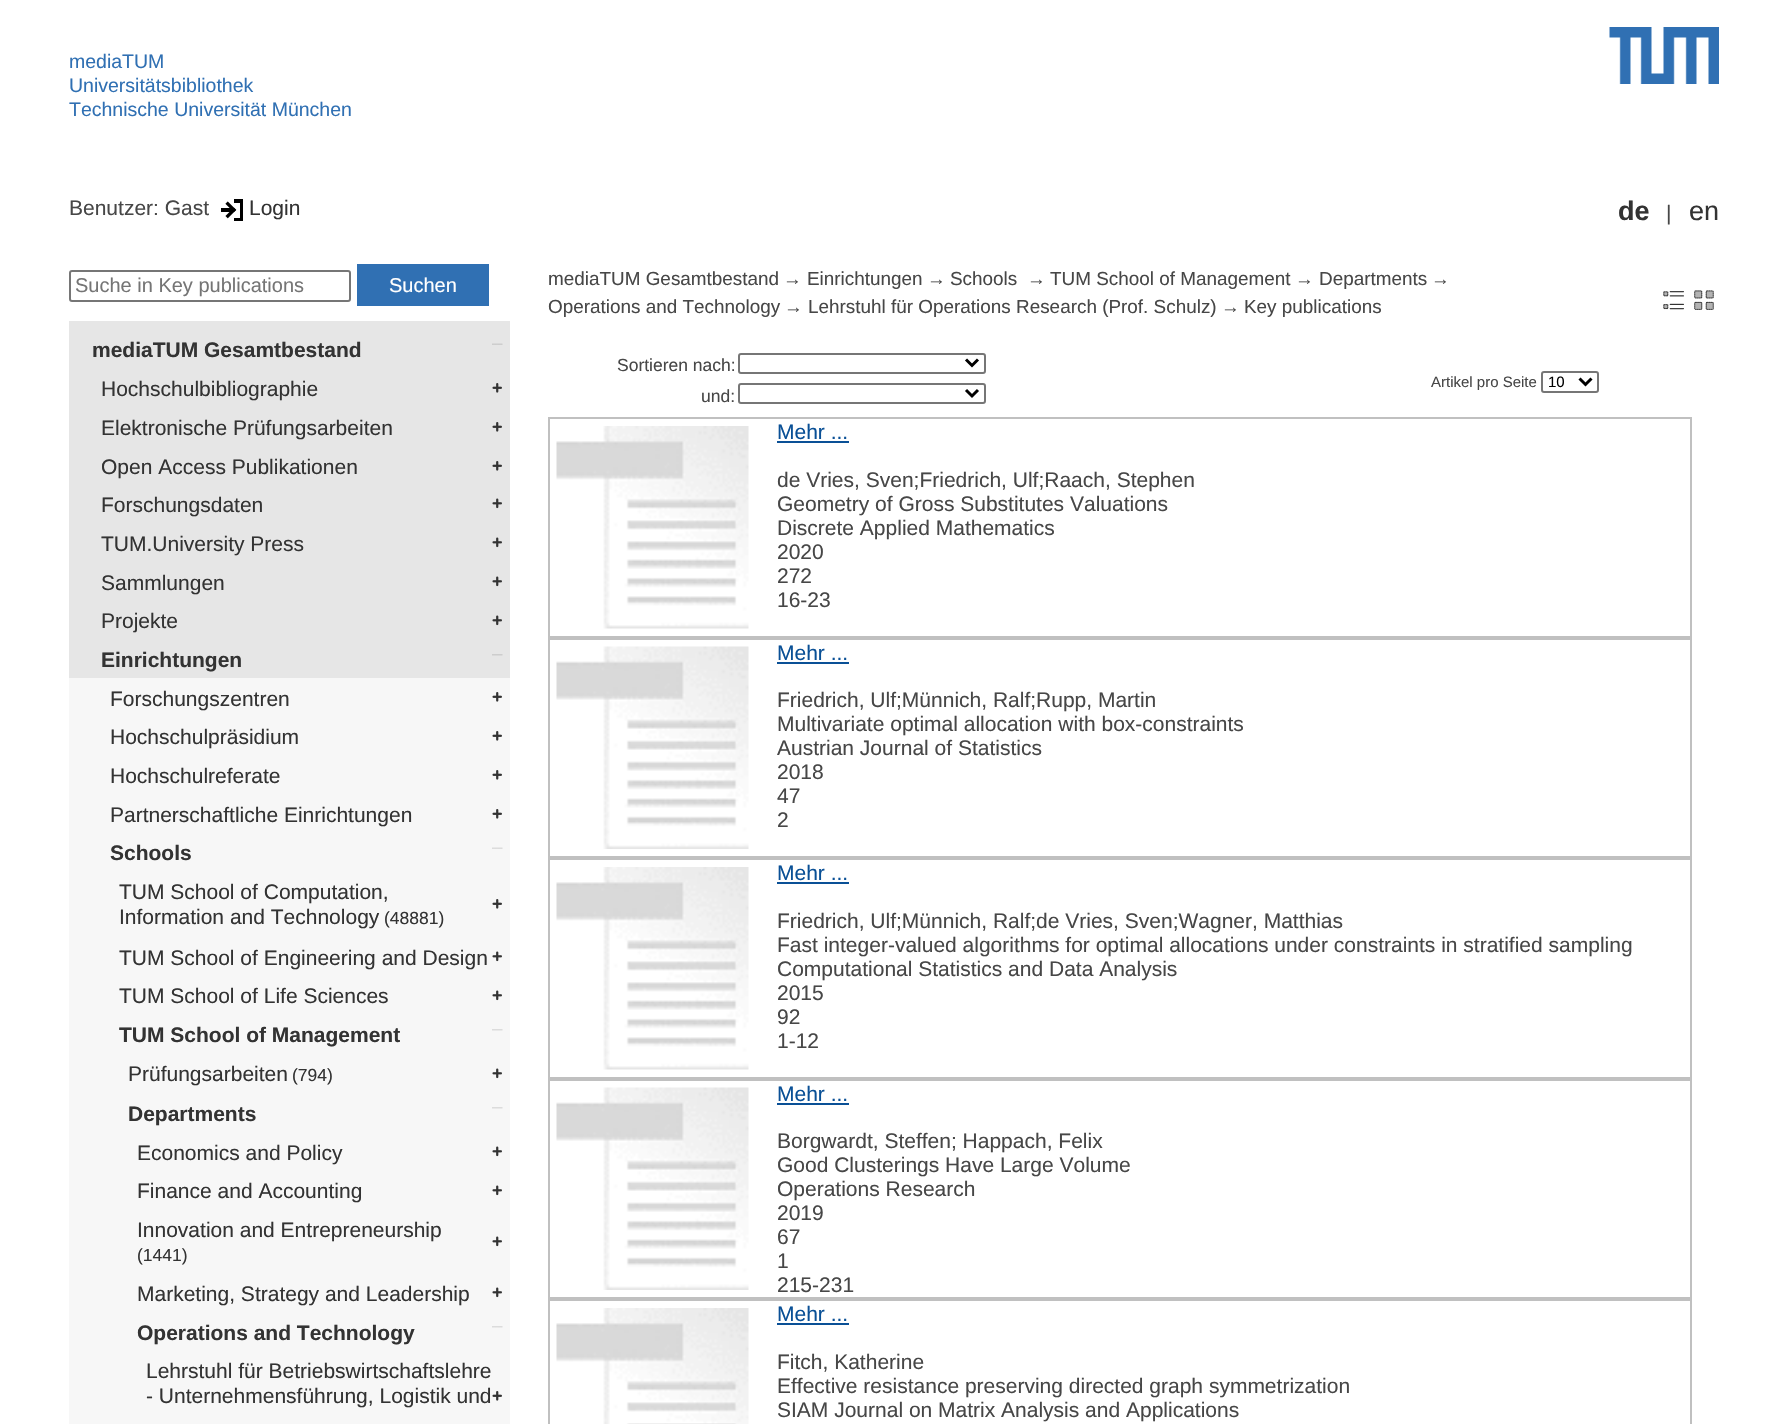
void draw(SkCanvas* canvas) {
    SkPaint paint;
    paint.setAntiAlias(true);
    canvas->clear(0xFFFFFFFF);
    SkFont font1(fontMgr->matchFamilyStyle("Liberation Sans", SkFontStyle::Normal()), 19.5f);
    font1.setSubpixel(true);
    paint.setColor(0xFF3070B3);
    canvas->drawString("mediaTUM", 69, 68, font1, paint);
    canvas->drawString("Universitätsbibliothek", 69, 92, font1, paint);
    canvas->drawString("Technische Universität München", 69, 116, font1, paint);
    canvas->drawImageRect(SkImages::DeferredFromEncodedData(SkData::MakeFromFileName("img1.png")), SkRect::MakeXYWH(1609, 27, 110, 57), SkSamplingOptions());
    SkFont font2(fontMgr->matchFamilyStyle("Liberation Sans", SkFontStyle::Normal()), 21);
    font2.setSubpixel(true);
    paint.setColor(0xFF474747);
    canvas->drawString("Benutzer: Gast", 69, 215, font2, paint);
    canvas->drawImageRect(SkImages::DeferredFromEncodedData(SkData::MakeFromFileName("img2.png")), SkRect::MakeXYWH(221, 199, 22, 22), SkSamplingOptions());
    paint.setColor(0xFF333333);
    canvas->drawString("Login", 249, 215, font2, paint);
    SkFont font3(fontMgr->matchFamilyStyle("Liberation Sans", SkFontStyle::Bold()), 27);
    font3.setSubpixel(true);
    canvas->drawString("de", 1618, 220, font3, paint);
    paint.setColor(0xFF474747);
    canvas->drawString("|", 1666, 220, font2, paint);
    SkFont font4(fontMgr->matchFamilyStyle("Liberation Sans", SkFontStyle::Normal()), 27);
    font4.setSubpixel(true);
    paint.setColor(0xFF333333);
    canvas->drawString("en", 1689, 220, font4, paint);
    paint.setStyle(SkPaint::kStroke_Style);
    paint.setStrokeWidth(2);
    paint.setColor(0xFF767676);
    canvas->drawRoundRect(SkRect::MakeXYWH(70, 271, 280, 30), 2, 2, paint);
    SkFont font5(fontMgr->matchFamilyStyle("Liberation Sans", SkFontStyle::Normal()), 20);
    font5.setSubpixel(true);
    paint.setStyle(SkPaint::kFill_Style);
    paint.setColor(0xFF757575);
    canvas->drawString("Suche in Key publications", 75, 292, font5, paint);
    paint.setColor(0xFF3070B3);
    canvas->drawRect(SkRect::MakeXYWH(357, 264, 132, 42), paint);
    paint.setColor(0xFFFFFFFF);
    canvas->drawString("Suchen", 389, 292, font5, paint);
    paint.setColor(0xFFE6E6E6);
    canvas->drawRect(SkRect::MakeXYWH(69, 321, 441, 357), paint);
    SkFont font6(fontMgr->matchFamilyStyle("Liberation Sans", SkFontStyle::Bold()), 21);
    font6.setSubpixel(true);
    paint.setColor(0xFF333333);
    canvas->drawString("mediaTUM Gesamtbestand", 92, 357, font6, paint);
    canvas->drawImageRect(SkImages::DeferredFromEncodedData(SkData::MakeFromFileName("img3.png")), SkRect::MakeXYWH(492, 343, 11, 2), SkSamplingOptions());
    canvas->drawString("Hochschulbibliographie", 101, 396, font2, paint);
    canvas->drawImageRect(SkImages::DeferredFromEncodedData(SkData::MakeFromFileName("img4.png")), SkRect::MakeXYWH(492, 383, 10, 10), SkSamplingOptions());
    canvas->drawString("Elektronische Prüfungsarbeiten", 101, 435, font2, paint);
    canvas->drawImageRect(SkImages::DeferredFromEncodedData(SkData::MakeFromFileName("img4.png")), SkRect::MakeXYWH(492, 422, 10, 10), SkSamplingOptions());
    canvas->drawString("Open Access Publikationen", 101, 474, font2, paint);
    canvas->drawImageRect(SkImages::DeferredFromEncodedData(SkData::MakeFromFileName("img4.png")), SkRect::MakeXYWH(492, 461, 10, 10), SkSamplingOptions());
    canvas->drawString("Forschungsdaten", 101, 512, font2, paint);
    canvas->drawImageRect(SkImages::DeferredFromEncodedData(SkData::MakeFromFileName("img5.png")), SkRect::MakeXYWH(492, 498, 10, 11), SkSamplingOptions());
    canvas->drawString("TUM.University Press", 101, 551, font2, paint);
    canvas->drawImageRect(SkImages::DeferredFromEncodedData(SkData::MakeFromFileName("img5.png")), SkRect::MakeXYWH(492, 537, 10, 11), SkSamplingOptions());
    canvas->drawString("Sammlungen", 101, 590, font2, paint);
    canvas->drawImageRect(SkImages::DeferredFromEncodedData(SkData::MakeFromFileName("img5.png")), SkRect::MakeXYWH(492, 576, 10, 11), SkSamplingOptions());
    canvas->drawString("Projekte", 101, 628, font2, paint);
    canvas->drawImageRect(SkImages::DeferredFromEncodedData(SkData::MakeFromFileName("img5.png")), SkRect::MakeXYWH(492, 615, 10, 11), SkSamplingOptions());
    canvas->drawString("Einrichtungen", 101, 667, font6, paint);
    canvas->drawImageRect(SkImages::DeferredFromEncodedData(SkData::MakeFromFileName("img6.png")), SkRect::MakeXYWH(492, 654, 11, 2), SkSamplingOptions());
    paint.setColor(0xFFF7F7F7);
    canvas->drawRect(SkRect::MakeXYWH(69, 678, 441, 746), paint);
    paint.setColor(0xFF333333);
    canvas->drawString("Forschungszentren", 110, 706, font2, paint);
    canvas->drawImageRect(SkImages::DeferredFromEncodedData(SkData::MakeFromFileName("img7.png")), SkRect::MakeXYWH(492, 692, 10, 10), SkSamplingOptions());
    canvas->drawString("Hochschulpräsidium", 110, 744, font2, paint);
    canvas->drawImageRect(SkImages::DeferredFromEncodedData(SkData::MakeFromFileName("img7.png")), SkRect::MakeXYWH(492, 731, 10, 10), SkSamplingOptions());
    canvas->drawString("Hochschulreferate", 110, 783, font2, paint);
    canvas->drawImageRect(SkImages::DeferredFromEncodedData(SkData::MakeFromFileName("img7.png")), SkRect::MakeXYWH(492, 770, 10, 10), SkSamplingOptions());
    canvas->drawString("Partnerschaftliche Einrichtungen", 110, 822, font2, paint);
    canvas->drawImageRect(SkImages::DeferredFromEncodedData(SkData::MakeFromFileName("img7.png")), SkRect::MakeXYWH(492, 809, 10, 10), SkSamplingOptions());
    canvas->drawString("Schools", 110, 860, font6, paint);
    canvas->drawImageRect(SkImages::DeferredFromEncodedData(SkData::MakeFromFileName("img8.png")), SkRect::MakeXYWH(492, 847, 11, 2), SkSamplingOptions());
    canvas->drawString("TUM School of Computation,", 119, 899, font2, paint);
    canvas->drawImageRect(SkImages::DeferredFromEncodedData(SkData::MakeFromFileName("img7.png")), SkRect::MakeXYWH(492, 899, 10, 10), SkSamplingOptions());
    canvas->drawString("Information and Technology", 119, 924, font2, paint);
    SkFont font7(fontMgr->matchFamilyStyle("Liberation Sans", SkFontStyle::Normal()), 17.5f);
    font7.setSubpixel(true);
    canvas->drawString("(48881)", 384, 924, font7, paint);
    canvas->drawString("TUM School of Engineering and Design", 119, 965, font2, paint);
    canvas->drawImageRect(SkImages::DeferredFromEncodedData(SkData::MakeFromFileName("img9.png")), SkRect::MakeXYWH(492, 951, 10, 11), SkSamplingOptions());
    canvas->drawString("TUM School of Life Sciences", 119, 1003, font2, paint);
    canvas->drawImageRect(SkImages::DeferredFromEncodedData(SkData::MakeFromFileName("img9.png")), SkRect::MakeXYWH(492, 990, 10, 11), SkSamplingOptions());
    canvas->drawString("TUM School of Management", 119, 1042, font6, paint);
    canvas->drawImageRect(SkImages::DeferredFromEncodedData(SkData::MakeFromFileName("img10.png")), SkRect::MakeXYWH(492, 1029, 11, 2), SkSamplingOptions());
    canvas->drawString("Prüfungsarbeiten", 128, 1081, font2, paint);
    canvas->drawString("(794)", 292, 1081, font7, paint);
    canvas->drawImageRect(SkImages::DeferredFromEncodedData(SkData::MakeFromFileName("img9.png")), SkRect::MakeXYWH(492, 1068, 10, 11), SkSamplingOptions());
    canvas->drawString("Departments", 128, 1121, font6, paint);
    canvas->drawImageRect(SkImages::DeferredFromEncodedData(SkData::MakeFromFileName("img10.png")), SkRect::MakeXYWH(492, 1107, 11, 2), SkSamplingOptions());
    canvas->drawString("Economics and Policy", 137, 1160, font2, paint);
    canvas->drawImageRect(SkImages::DeferredFromEncodedData(SkData::MakeFromFileName("img9.png")), SkRect::MakeXYWH(492, 1146, 10, 11), SkSamplingOptions());
    canvas->drawString("Finance and Accounting", 137, 1198, font2, paint);
    canvas->drawImageRect(SkImages::DeferredFromEncodedData(SkData::MakeFromFileName("img9.png")), SkRect::MakeXYWH(492, 1185, 10, 11), SkSamplingOptions());
    canvas->drawString("Innovation and Entrepreneurship", 137, 1237, font2, paint);
    canvas->drawImageRect(SkImages::DeferredFromEncodedData(SkData::MakeFromFileName("img9.png")), SkRect::MakeXYWH(492, 1236, 10, 11), SkSamplingOptions());
    canvas->drawString("(1441)", 137, 1261, font7, paint);
    canvas->drawString("Marketing, Strategy and Leadership", 137, 1301, font2, paint);
    canvas->drawImageRect(SkImages::DeferredFromEncodedData(SkData::MakeFromFileName("img9.png")), SkRect::MakeXYWH(492, 1287, 10, 11), SkSamplingOptions());
    canvas->drawString("Operations and Technology", 137, 1340, font6, paint);
    canvas->drawImageRect(SkImages::DeferredFromEncodedData(SkData::MakeFromFileName("img11.png")), SkRect::MakeXYWH(492, 1326, 11, 2), SkSamplingOptions());
    canvas->drawString("Lehrstuhl für Betriebswirtschaftslehre", 146, 1378, font2, paint);
    canvas->drawString("- Unternehmensführung, Logistik und", 146, 1403, font2, paint);
    canvas->drawImageRect(SkImages::DeferredFromEncodedData(SkData::MakeFromFileName("img7.png")), SkRect::MakeXYWH(492, 1391, 10, 10), SkSamplingOptions());
    SkFont font8(fontMgr->matchFamilyStyle("Liberation Sans", SkFontStyle::Normal()), 18.9f);
    font8.setSubpixel(true);
    paint.setColor(0xFF474747);
    canvas->drawString("mediaTUM Gesamtbestand", 548, 285, font8, paint);
    canvas->drawString("→", 783, 285, font8, paint);
    canvas->drawString("Einrichtungen", 807, 285, font8, paint);
    canvas->drawString("→", 927, 285, font8, paint);
    canvas->drawString("Schools", 950, 285, font8, paint);
    canvas->drawString("→", 1027, 285, font8, paint);
    canvas->drawString("TUM School of Management", 1050, 285, font8, paint);
    canvas->drawString("→", 1295, 285, font8, paint);
    canvas->drawString("Departments", 1319, 285, font8, paint);
    canvas->drawString("→", 1431, 285, font8, paint);
    canvas->drawString("Operations and Technology", 548, 313, font8, paint);
    canvas->drawString("→", 784, 313, font8, paint);
    canvas->drawString("Lehrstuhl für Operations Research (Prof. Schulz)", 808, 313, font8, paint);
    canvas->drawString("→", 1221, 313, font8, paint);
    canvas->drawString("Key publications", 1244, 313, font8, paint);
    canvas->drawImageRect(SkImages::DeferredFromEncodedData(SkData::MakeFromFileName("img12.png")), SkRect::MakeXYWH(1663, 291, 21, 19), SkSamplingOptions());
    canvas->drawImageRect(SkImages::DeferredFromEncodedData(SkData::MakeFromFileName("img13.png")), SkRect::MakeXYWH(1694, 290, 20, 20), SkSamplingOptions());
    canvas->drawString("Sortieren nach:", 617, 371, font7, paint);
    paint.setStyle(SkPaint::kStroke_Style);
    paint.setColor(0xFF767676);
    canvas->drawRoundRect(SkRect::MakeXYWH(739, 354, 246, 19), 2, 2, paint);
    paint.setStrokeWidth(3);
    paint.setColor(0xFF000000);
    canvas->drawPath(SkPathBuilder().moveTo(966, 359.5f).lineTo(972, 365.5f).lineTo(978, 359.5f).detach(), paint);
    paint.setStyle(SkPaint::kFill_Style);
    paint.setColor(0xFF474747);
    canvas->drawString("und:", 701, 402, font7, paint);
    paint.setStyle(SkPaint::kStroke_Style);
    paint.setStrokeWidth(2);
    paint.setColor(0xFF767676);
    canvas->drawRoundRect(SkRect::MakeXYWH(739, 384, 246, 19), 2, 2, paint);
    paint.setStrokeWidth(3);
    paint.setColor(0xFF000000);
    canvas->drawPath(SkPathBuilder().moveTo(966, 390).lineTo(972, 396).lineTo(978, 390).detach(), paint);
    SkFont font9(fontMgr->matchFamilyStyle("Liberation Sans", SkFontStyle::Normal()), 15);
    font9.setSubpixel(true);
    paint.setStyle(SkPaint::kFill_Style);
    paint.setColor(0xFF474747);
    canvas->drawString("Artikel pro Seite", 1431, 387, font9, paint);
    paint.setStyle(SkPaint::kStroke_Style);
    paint.setStrokeWidth(2);
    paint.setColor(0xFF767676);
    canvas->drawRoundRect(SkRect::MakeXYWH(1542, 372, 56, 20), 2, 2, paint);
    paint.setStrokeWidth(3);
    paint.setColor(0xFF000000);
    canvas->drawPath(SkPathBuilder().moveTo(1579.5f, 378.5f).lineTo(1585.5f, 384.5f).lineTo(1591.5f, 378.5f).detach(), paint);
    paint.setStyle(SkPaint::kFill_Style);
    canvas->drawString("10", 1548, 387, font9, paint);
    paint.setStyle(SkPaint::kStroke_Style);
    paint.setStrokeWidth(2);
    paint.setColor(0xFFC0C0C0);
    canvas->drawRect(SkRect::MakeXYWH(549, 418, 1142, 219), paint);
    canvas->drawImageRect(SkImages::DeferredFromEncodedData(SkData::MakeFromFileName("img14.png")), SkRect::MakeXYWH(556, 426, 193, 203), SkSamplingOptions());
    paint.setStyle(SkPaint::kFill_Style);
    paint.setColor(0xFF0A5096);
    canvas->drawString("Mehr ...", 777, 439, font2, paint);
    canvas->drawRect(SkRect::MakeXYWH(777, 441, 72, 2), paint);
    paint.setColor(0xFF474747);
    canvas->drawString("de Vries, Sven;Friedrich, Ulf;Raach, Stephen", 777, 487, font2, paint);
    canvas->drawString("Geometry of Gross Substitutes Valuations", 777, 511, font2, paint);
    canvas->drawString("Discrete Applied Mathematics", 777, 535, font2, paint);
    canvas->drawString("2020", 777, 559, font2, paint);
    canvas->drawString("272", 777, 583, font2, paint);
    canvas->drawString("16-23", 777, 607, font2, paint);
    paint.setStyle(SkPaint::kStroke_Style);
    paint.setColor(0xFFC0C0C0);
    canvas->drawRect(SkRect::MakeXYWH(549, 639, 1142, 218), paint);
    canvas->drawImageRect(SkImages::DeferredFromEncodedData(SkData::MakeFromFileName("img15.png")), SkRect::MakeXYWH(556, 646, 193, 203), SkSamplingOptions());
    paint.setStyle(SkPaint::kFill_Style);
    paint.setColor(0xFF0A5096);
    canvas->drawString("Mehr ...", 777, 660, font2, paint);
    canvas->drawRect(SkRect::MakeXYWH(777, 662, 72, 2), paint);
    paint.setColor(0xFF474747);
    canvas->drawString("Friedrich, Ulf;Münnich, Ralf;Rupp, Martin", 777, 707, font2, paint);
    canvas->drawString("Multivariate optimal allocation with box-constraints", 777, 731, font2, paint);
    canvas->drawString("Austrian Journal of Statistics", 777, 755, font2, paint);
    canvas->drawString("2018", 777, 779, font2, paint);
    canvas->drawString("47", 777, 803, font2, paint);
    canvas->drawString("2", 777, 827, font2, paint);
    paint.setStyle(SkPaint::kStroke_Style);
    paint.setColor(0xFFC0C0C0);
    canvas->drawRect(SkRect::MakeXYWH(549, 859, 1142, 219), paint);
    canvas->drawImageRect(SkImages::DeferredFromEncodedData(SkData::MakeFromFileName("img14.png")), SkRect::MakeXYWH(556, 867, 193, 203), SkSamplingOptions());
    paint.setStyle(SkPaint::kFill_Style);
    paint.setColor(0xFF0A5096);
    canvas->drawString("Mehr ...", 777, 880, font2, paint);
    canvas->drawRect(SkRect::MakeXYWH(777, 882, 72, 2), paint);
    paint.setColor(0xFF474747);
    canvas->drawString("Friedrich, Ulf;Münnich, Ralf;de Vries, Sven;Wagner, Matthias", 777, 928, font2, paint);
    canvas->drawString("Fast integer-valued algorithms for optimal allocations under constraints in stratified sampling", 777, 952, font2, paint);
    canvas->drawString("Computational Statistics and Data Analysis", 777, 976, font2, paint);
    canvas->drawString("2015", 777, 1000, font2, paint);
    canvas->drawString("92", 777, 1024, font2, paint);
    canvas->drawString("1-12", 777, 1048, font2, paint);
    paint.setStyle(SkPaint::kStroke_Style);
    paint.setColor(0xFFC0C0C0);
    canvas->drawRect(SkRect::MakeXYWH(549, 1080, 1142, 218), paint);
    canvas->drawImageRect(SkImages::DeferredFromEncodedData(SkData::MakeFromFileName("img15.png")), SkRect::MakeXYWH(556, 1087, 193, 203), SkSamplingOptions());
    paint.setStyle(SkPaint::kFill_Style);
    paint.setColor(0xFF0A5096);
    canvas->drawString("Mehr ...", 777, 1101, font2, paint);
    canvas->drawRect(SkRect::MakeXYWH(777, 1103, 72, 2), paint);
    paint.setColor(0xFF474747);
    canvas->drawString("Borgwardt, Steffen; Happach, Felix", 777, 1148, font2, paint);
    canvas->drawString("Good Clusterings Have Large Volume", 777, 1172, font2, paint);
    canvas->drawString("Operations Research", 777, 1196, font2, paint);
    canvas->drawString("2019", 777, 1220, font2, paint);
    canvas->drawString("67", 777, 1244, font2, paint);
    canvas->drawString("1", 777, 1268, font2, paint);
    canvas->drawString("215-231", 777, 1292, font2, paint);
    paint.setStyle(SkPaint::kStroke_Style);
    paint.setColor(0xFFC0C0C0);
    canvas->drawRect(SkRect::MakeXYWH(549, 1300, 1142, 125), paint);
    canvas->drawImageRect(SkImages::DeferredFromEncodedData(SkData::MakeFromFileName("img16.png")), SkRect::MakeXYWH(556, 1308, 193, 116), SkSamplingOptions());
    paint.setStyle(SkPaint::kFill_Style);
    paint.setColor(0xFF0A5096);
    canvas->drawString("Mehr ...", 777, 1321, font2, paint);
    canvas->drawRect(SkRect::MakeXYWH(777, 1323, 72, 2), paint);
    paint.setColor(0xFF474747);
    canvas->drawString("Fitch, Katherine", 777, 1369, font2, paint);
    canvas->drawString("Effective resistance preserving directed graph symmetrization", 777, 1393, font2, paint);
    canvas->drawString("SIAM Journal on Matrix Analysis and Applications", 777, 1417, font2, paint);
}
